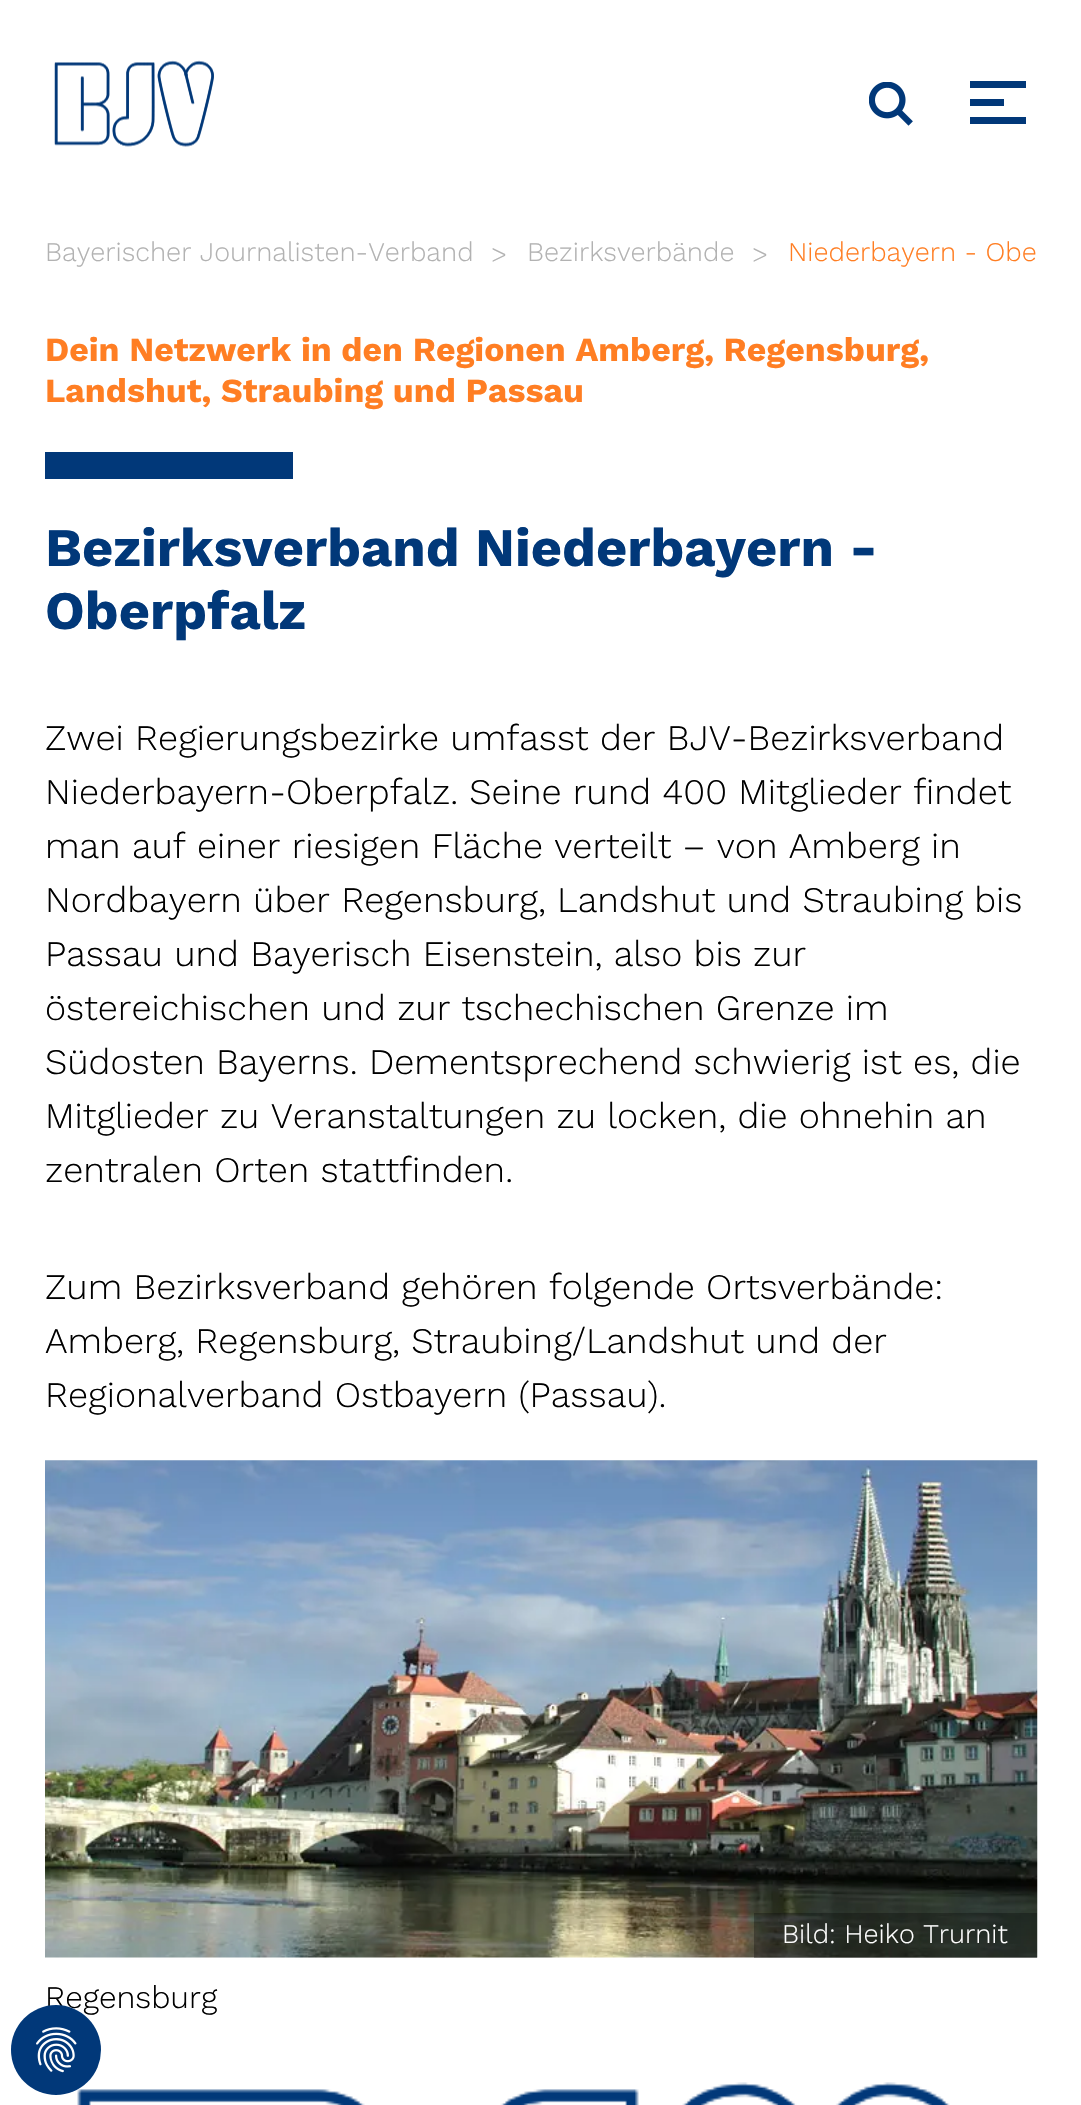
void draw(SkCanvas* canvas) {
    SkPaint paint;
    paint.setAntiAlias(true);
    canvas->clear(0xFFFFFFFF);
    canvas->drawImageRect(SkImages::DeferredFromEncodedData(SkData::MakeFromFileName("img1.png")), SkRect::MakeXYWH(54, 60, 160, 87), SkSamplingOptions());
    canvas->drawImageRect(SkImages::DeferredFromEncodedData(SkData::MakeFromFileName("img2.png")), SkRect::MakeXYWH(869, 82, 44, 44), SkSamplingOptions());
    paint.setColor(0xFF013879);
    canvas->drawRect(SkRect::MakeXYWH(970, 81, 56, 7), paint);
    canvas->drawRect(SkRect::MakeXYWH(970, 99, 34, 7), paint);
    canvas->drawRect(SkRect::MakeXYWH(970, 117, 56, 7), paint);
    SkFont font1(fontMgr->matchFamilyStyle("Work Sans", SkFontStyle(300, SkFontStyle::kNormal_Width, SkFontStyle::kUpright_Slant)), 27);
    font1.setSubpixel(true);
    paint.setColor(0xFFB2B2B2);
    canvas->drawString("Bayerischer Journalisten-Verband", 45, 261, font1, paint);
    canvas->drawString(">", 491, 263, font1, paint);
    canvas->drawString("Bezirksverbände", 527, 261, font1, paint);
    canvas->drawString(">", 752, 263, font1, paint);
    paint.setColor(0xFFFF7E23);
    canvas->drawString("Niederbayern - Obe", 788, 261, font1, paint);
    SkFont font2(fontMgr->matchFamilyStyle("Work Sans", SkFontStyle::Bold()), 33.75f);
    font2.setSubpixel(true);
    canvas->drawString("Dein Netzwerk in den Regionen Amberg, Regensburg,", 45, 361, font2, paint);
    canvas->drawString("Landshut, Straubing und Passau", 45, 402, font2, paint);
    paint.setColor(0xFF013879);
    canvas->drawRect(SkRect::MakeXYWH(45, 452, 248, 27), paint);
    SkFont font3(fontMgr->matchFamilyStyle("Work Sans", SkFontStyle::Bold()), 54);
    font3.setSubpixel(true);
    canvas->drawString("Bezirksverband Niederbayern -", 45, 566, font3, paint);
    canvas->drawString("Oberpfalz", 45, 629, font3, paint);
    SkFont font4(fontMgr->matchFamilyStyle("Work Sans", SkFontStyle(300, SkFontStyle::kNormal_Width, SkFontStyle::kUpright_Slant)), 36);
    font4.setSubpixel(true);
    paint.setColor(0xFF000000);
    canvas->drawString("Zwei Regierungsbezirke umfasst der BJV-Bezirksverband", 45, 750, font4, paint);
    canvas->drawString("Niederbayern-Oberpfalz. Seine rund 400 Mitglieder findet", 45, 804, font4, paint);
    canvas->drawString("man auf einer riesigen Fläche verteilt – von Amberg in", 45, 858, font4, paint);
    canvas->drawString("Nordbayern über Regensburg, Landshut und Straubing bis", 45, 912, font4, paint);
    canvas->drawString("Passau und Bayerisch Eisenstein, also bis zur", 45, 966, font4, paint);
    canvas->drawString("östereichischen und zur tschechischen Grenze im", 45, 1020, font4, paint);
    canvas->drawString("Südosten Bayerns. Dementsprechend schwierig ist es, die", 45, 1074, font4, paint);
    canvas->drawString("Mitglieder zu Veranstaltungen zu locken, die ohnehin an", 45, 1128, font4, paint);
    canvas->drawString("zentralen Orten stattfinden.", 45, 1182, font4, paint);
    canvas->drawString("Zum Bezirksverband gehören folgende Ortsverbände:", 45, 1299, font4, paint);
    canvas->drawString("Amberg, Regensburg, Straubing/Landshut und der", 45, 1353, font4, paint);
    canvas->drawString("Regionalverband Ostbayern (Passau).", 45, 1407, font4, paint);
    canvas->drawImageRect(SkImages::DeferredFromEncodedData(SkData::MakeFromFileName("img3.png")), SkRect::MakeXYWH(45, 1460, 993, 498), SkSamplingOptions());
    paint.setColor(0x4D000000);
    canvas->drawRect(SkRect::MakeXYWH(754, 1913, 283, 45), paint);
    paint.setColor(0xFFFFFFFF);
    canvas->drawString("Bild: Heiko Trurnit", 782, 1943, font1, paint);
    SkFont font5(fontMgr->matchFamilyStyle("Work Sans", SkFontStyle(300, SkFontStyle::kNormal_Width, SkFontStyle::kUpright_Slant)), 31.5f);
    font5.setSubpixel(true);
    paint.setColor(0xFF000000);
    canvas->drawString("Regensburg", 45, 2008, font5, paint);
    canvas->drawImageRect(SkImages::DeferredFromEncodedData(SkData::MakeFromFileName("img4.png")), SkRect::MakeXYWH(77, 2082, 873, 23), SkSamplingOptions());
    paint.setColor(0xFF013879);
    canvas->drawCircle(56, 2050, 45, paint);
    canvas->drawImageRect(SkImages::DeferredFromEncodedData(SkData::MakeFromFileName("img5.png")), SkRect::MakeXYWH(36, 2027, 41, 46), SkSamplingOptions());
}
